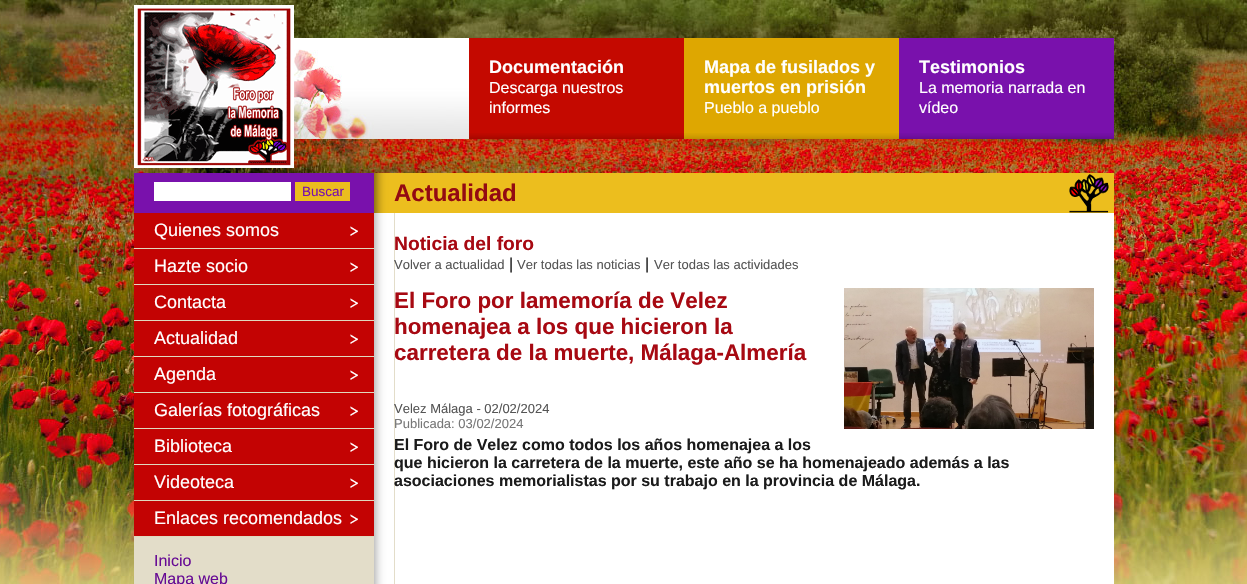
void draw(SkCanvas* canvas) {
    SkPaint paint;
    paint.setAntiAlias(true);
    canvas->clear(0xFFFFFFFF);
    canvas->drawImageRect(SkImages::DeferredFromEncodedData(SkData::MakeFromFileName("img1.png")), SkRect::MakeXYWH(0, 0, 1247, 584), SkSamplingOptions());
    canvas->drawImageRect(SkImages::DeferredFromEncodedData(SkData::MakeFromFileName("img2.png")), SkRect::MakeXYWH(134, 5, 160, 163), SkSamplingOptions());
    paint.setColor(0xFFFFFFFF);
    canvas->drawRect(SkRect::MakeXYWH(294, 38, 175, 11), paint);
    canvas->drawImageRect(SkImages::DeferredFromEncodedData(SkData::MakeFromFileName("img3.png")), SkRect::MakeXYWH(294, 49, 175, 90), SkSamplingOptions());
    paint.setColor(0xFFC40900);
    canvas->drawRect(SkRect::MakeXYWH(469, 38, 215, 95), paint);
    canvas->drawImageRect(SkImages::DeferredFromEncodedData(SkData::MakeFromFileName("img4.png")), SkRect::MakeXYWH(469, 133, 215, 6), SkSamplingOptions());
    SkFont font1(fontMgr->matchFamilyStyle("Liberation Sans", SkFontStyle::Bold()), 18);
    font1.setSubpixel(true);
    paint.setColor(0xFFFFFFFF);
    canvas->drawString("Documentación", 489, 73, font1, paint);
    SkFont font2(fontMgr->matchFamilyStyle("Liberation Sans", SkFontStyle::Normal()), 16);
    font2.setSubpixel(true);
    canvas->drawString("Descarga nuestros", 489, 93, font2, paint);
    canvas->drawString("informes", 489, 113, font2, paint);
    paint.setColor(0xFFDEA701);
    canvas->drawRect(SkRect::MakeXYWH(684, 38, 215, 95), paint);
    canvas->drawImageRect(SkImages::DeferredFromEncodedData(SkData::MakeFromFileName("img5.png")), SkRect::MakeXYWH(684, 133, 215, 6), SkSamplingOptions());
    paint.setColor(0xFFFFFFFF);
    canvas->drawString("Mapa de fusilados y", 704, 73, font1, paint);
    canvas->drawString("muertos en prisión", 704, 93, font1, paint);
    canvas->drawString("Pueblo a pueblo", 704, 113, font2, paint);
    paint.setColor(0xFF7911AC);
    canvas->drawRect(SkRect::MakeXYWH(899, 38, 215, 95), paint);
    canvas->drawImageRect(SkImages::DeferredFromEncodedData(SkData::MakeFromFileName("img6.png")), SkRect::MakeXYWH(899, 133, 215, 6), SkSamplingOptions());
    paint.setColor(0xFFFFFFFF);
    canvas->drawString("Testimonios", 919, 73, font1, paint);
    canvas->drawString("La memoria narrada en", 919, 93, font2, paint);
    canvas->drawString("vídeo", 919, 113, font2, paint);
    canvas->drawRect(SkRect::MakeXYWH(395, 213, 719, 371), paint);
    canvas->drawImageRect(SkImages::DeferredFromEncodedData(SkData::MakeFromFileName("img7.png")), SkRect::MakeXYWH(134, 213, 261, 371), SkSamplingOptions());
    canvas->drawImageRect(SkImages::DeferredFromEncodedData(SkData::MakeFromFileName("img8.png")), SkRect::MakeXYWH(134, 173, 980, 40), SkSamplingOptions());
    canvas->drawRect(SkRect::MakeXYWH(154, 182, 137, 19), paint);
    paint.setColor(0xFFEBBD1E);
    canvas->drawRect(SkRect::MakeXYWH(295, 182, 55, 19), paint);
    SkFont font3(fontMgr->matchFamilyStyle("Liberation Sans", SkFontStyle::Normal()), 13.5f);
    font3.setSubpixel(true);
    paint.setColor(0xFF7911AC);
    canvas->drawString("Buscar", 302, 196, font3, paint);
    paint.setColor(0xFFE0D9BF);
    canvas->drawRect(SkRect::MakeXYWH(134, 248, 240, 1), paint);
    paint.setColor(0xFFC30303);
    canvas->drawRect(SkRect::MakeXYWH(134, 213, 240, 35), paint);
    canvas->drawImageRect(SkImages::DeferredFromEncodedData(SkData::MakeFromFileName("img9.png")), SkRect::MakeXYWH(350, 226, 8, 10), SkSamplingOptions());
    SkFont font4(fontMgr->matchFamilyStyle("Liberation Sans", SkFontStyle::Normal()), 18);
    font4.setSubpixel(true);
    paint.setColor(0xFFFFFFFF);
    canvas->drawString("Quienes somos", 154, 236, font4, paint);
    paint.setColor(0xFFE0D9BF);
    canvas->drawRect(SkRect::MakeXYWH(134, 284, 240, 1), paint);
    paint.setColor(0xFFC30303);
    canvas->drawRect(SkRect::MakeXYWH(134, 249, 240, 35), paint);
    canvas->drawImageRect(SkImages::DeferredFromEncodedData(SkData::MakeFromFileName("img9.png")), SkRect::MakeXYWH(350, 262, 8, 10), SkSamplingOptions());
    paint.setColor(0xFFFFFFFF);
    canvas->drawString("Hazte socio", 154, 272, font4, paint);
    paint.setColor(0xFFE0D9BF);
    canvas->drawRect(SkRect::MakeXYWH(134, 320, 240, 1), paint);
    paint.setColor(0xFFC30303);
    canvas->drawRect(SkRect::MakeXYWH(134, 285, 240, 35), paint);
    canvas->drawImageRect(SkImages::DeferredFromEncodedData(SkData::MakeFromFileName("img9.png")), SkRect::MakeXYWH(350, 298, 8, 10), SkSamplingOptions());
    paint.setColor(0xFFFFFFFF);
    canvas->drawString("Contacta", 154, 308, font4, paint);
    paint.setColor(0xFFE0D9BF);
    canvas->drawRect(SkRect::MakeXYWH(134, 356, 240, 1), paint);
    paint.setColor(0xFFC30303);
    canvas->drawRect(SkRect::MakeXYWH(134, 321, 240, 35), paint);
    canvas->drawImageRect(SkImages::DeferredFromEncodedData(SkData::MakeFromFileName("img9.png")), SkRect::MakeXYWH(350, 334, 8, 10), SkSamplingOptions());
    paint.setColor(0xFFFFFFFF);
    canvas->drawString("Actualidad", 154, 344, font4, paint);
    paint.setColor(0xFFE0D9BF);
    canvas->drawRect(SkRect::MakeXYWH(134, 392, 240, 1), paint);
    paint.setColor(0xFFC30303);
    canvas->drawRect(SkRect::MakeXYWH(134, 357, 240, 35), paint);
    canvas->drawImageRect(SkImages::DeferredFromEncodedData(SkData::MakeFromFileName("img9.png")), SkRect::MakeXYWH(350, 370, 8, 10), SkSamplingOptions());
    paint.setColor(0xFFFFFFFF);
    canvas->drawString("Agenda", 154, 380, font4, paint);
    paint.setColor(0xFFE0D9BF);
    canvas->drawRect(SkRect::MakeXYWH(134, 428, 240, 1), paint);
    paint.setColor(0xFFC30303);
    canvas->drawRect(SkRect::MakeXYWH(134, 393, 240, 35), paint);
    canvas->drawImageRect(SkImages::DeferredFromEncodedData(SkData::MakeFromFileName("img9.png")), SkRect::MakeXYWH(350, 406, 8, 10), SkSamplingOptions());
    paint.setColor(0xFFFFFFFF);
    canvas->drawString("Galerías fotográficas", 154, 416, font4, paint);
    paint.setColor(0xFFE0D9BF);
    canvas->drawRect(SkRect::MakeXYWH(134, 464, 240, 1), paint);
    paint.setColor(0xFFC30303);
    canvas->drawRect(SkRect::MakeXYWH(134, 429, 240, 35), paint);
    canvas->drawImageRect(SkImages::DeferredFromEncodedData(SkData::MakeFromFileName("img9.png")), SkRect::MakeXYWH(350, 442, 8, 10), SkSamplingOptions());
    paint.setColor(0xFFFFFFFF);
    canvas->drawString("Biblioteca", 154, 452, font4, paint);
    paint.setColor(0xFFE0D9BF);
    canvas->drawRect(SkRect::MakeXYWH(134, 500, 240, 1), paint);
    paint.setColor(0xFFC30303);
    canvas->drawRect(SkRect::MakeXYWH(134, 465, 240, 35), paint);
    canvas->drawImageRect(SkImages::DeferredFromEncodedData(SkData::MakeFromFileName("img9.png")), SkRect::MakeXYWH(350, 478, 8, 10), SkSamplingOptions());
    paint.setColor(0xFFFFFFFF);
    canvas->drawString("Videoteca", 154, 488, font4, paint);
    paint.setColor(0xFFE0D9BF);
    canvas->drawRect(SkRect::MakeXYWH(134, 536, 240, 1), paint);
    paint.setColor(0xFFC30303);
    canvas->drawRect(SkRect::MakeXYWH(134, 501, 240, 35), paint);
    canvas->drawImageRect(SkImages::DeferredFromEncodedData(SkData::MakeFromFileName("img9.png")), SkRect::MakeXYWH(350, 514, 8, 10), SkSamplingOptions());
    paint.setColor(0xFFFFFFFF);
    canvas->drawString("Enlaces recomendados", 154, 524, font4, paint);
    paint.setColor(0xFF670A94);
    canvas->drawString("Inicio", 154, 566, font2, paint);
    canvas->drawString("Mapa web", 154, 584, font2, paint);
    SkFont font5(fontMgr->matchFamilyStyle("Liberation Sans", SkFontStyle::Bold()), 24);
    font5.setSubpixel(true);
    paint.setColor(0xFF930A12);
    canvas->drawString("Actualidad", 394, 201, font5, paint);
    SkFont font6(fontMgr->matchFamilyStyle("Liberation Sans", SkFontStyle::Bold()), 19.25f);
    font6.setSubpixel(true);
    paint.setColor(0xFFA70912);
    canvas->drawString("Noticia del foro", 394, 250, font6, paint);
    SkFont font7(fontMgr->matchFamilyStyle("Liberation Sans", SkFontStyle::Normal()), 13);
    font7.setSubpixel(true);
    paint.setColor(0xFF555555);
    canvas->drawString("Volver a actualidad", 394, 269, font7, paint);
    paint.setColor(0xFF1B1B1B);
    canvas->drawString("|", 509, 269, font2, paint);
    paint.setColor(0xFF555555);
    canvas->drawString("Ver todas las noticias", 517, 269, font7, paint);
    paint.setColor(0xFF1B1B1B);
    canvas->drawString("|", 645, 269, font2, paint);
    paint.setColor(0xFF555555);
    canvas->drawString("Ver todas las actividades", 654, 269, font7, paint);
    SkFont font8(fontMgr->matchFamilyStyle("Liberation Sans", SkFontStyle::Bold()), 22.4f);
    font8.setSubpixel(true);
    paint.setColor(0xFFA70912);
    canvas->drawString("El Foro por lamemoría de Velez", 394, 308, font8, paint);
    canvas->drawString("homenajea a los que hicieron la", 394, 334, font8, paint);
    canvas->drawString("carretera de la muerte, Málaga-Almería", 394, 360, font8, paint);
    canvas->drawImageRect(SkImages::DeferredFromEncodedData(SkData::MakeFromFileName("img10.png")), SkRect::MakeXYWH(844, 288, 250, 141), SkSamplingOptions());
    paint.setColor(0xFF555555);
    canvas->drawString("Velez Málaga - 02/02/2024", 394, 413, font7, paint);
    paint.setColor(0xFF777777);
    canvas->drawString("Publicada: 03/02/2024", 394, 428, font7, paint);
    SkFont font9(fontMgr->matchFamilyStyle("Liberation Sans", SkFontStyle::Bold()), 16);
    font9.setSubpixel(true);
    paint.setColor(0xFF1B1B1B);
    canvas->drawString("El Foro de Velez como todos los años homenajea a los", 394, 450, font9, paint);
    canvas->drawString("que hicieron la carretera de la muerte, este año se ha homenajeado además a las", 394, 468, font9, paint);
    canvas->drawString("asociaciones memorialistas por su trabajo en la provincia de Málaga.", 394, 486, font9, paint);
}
